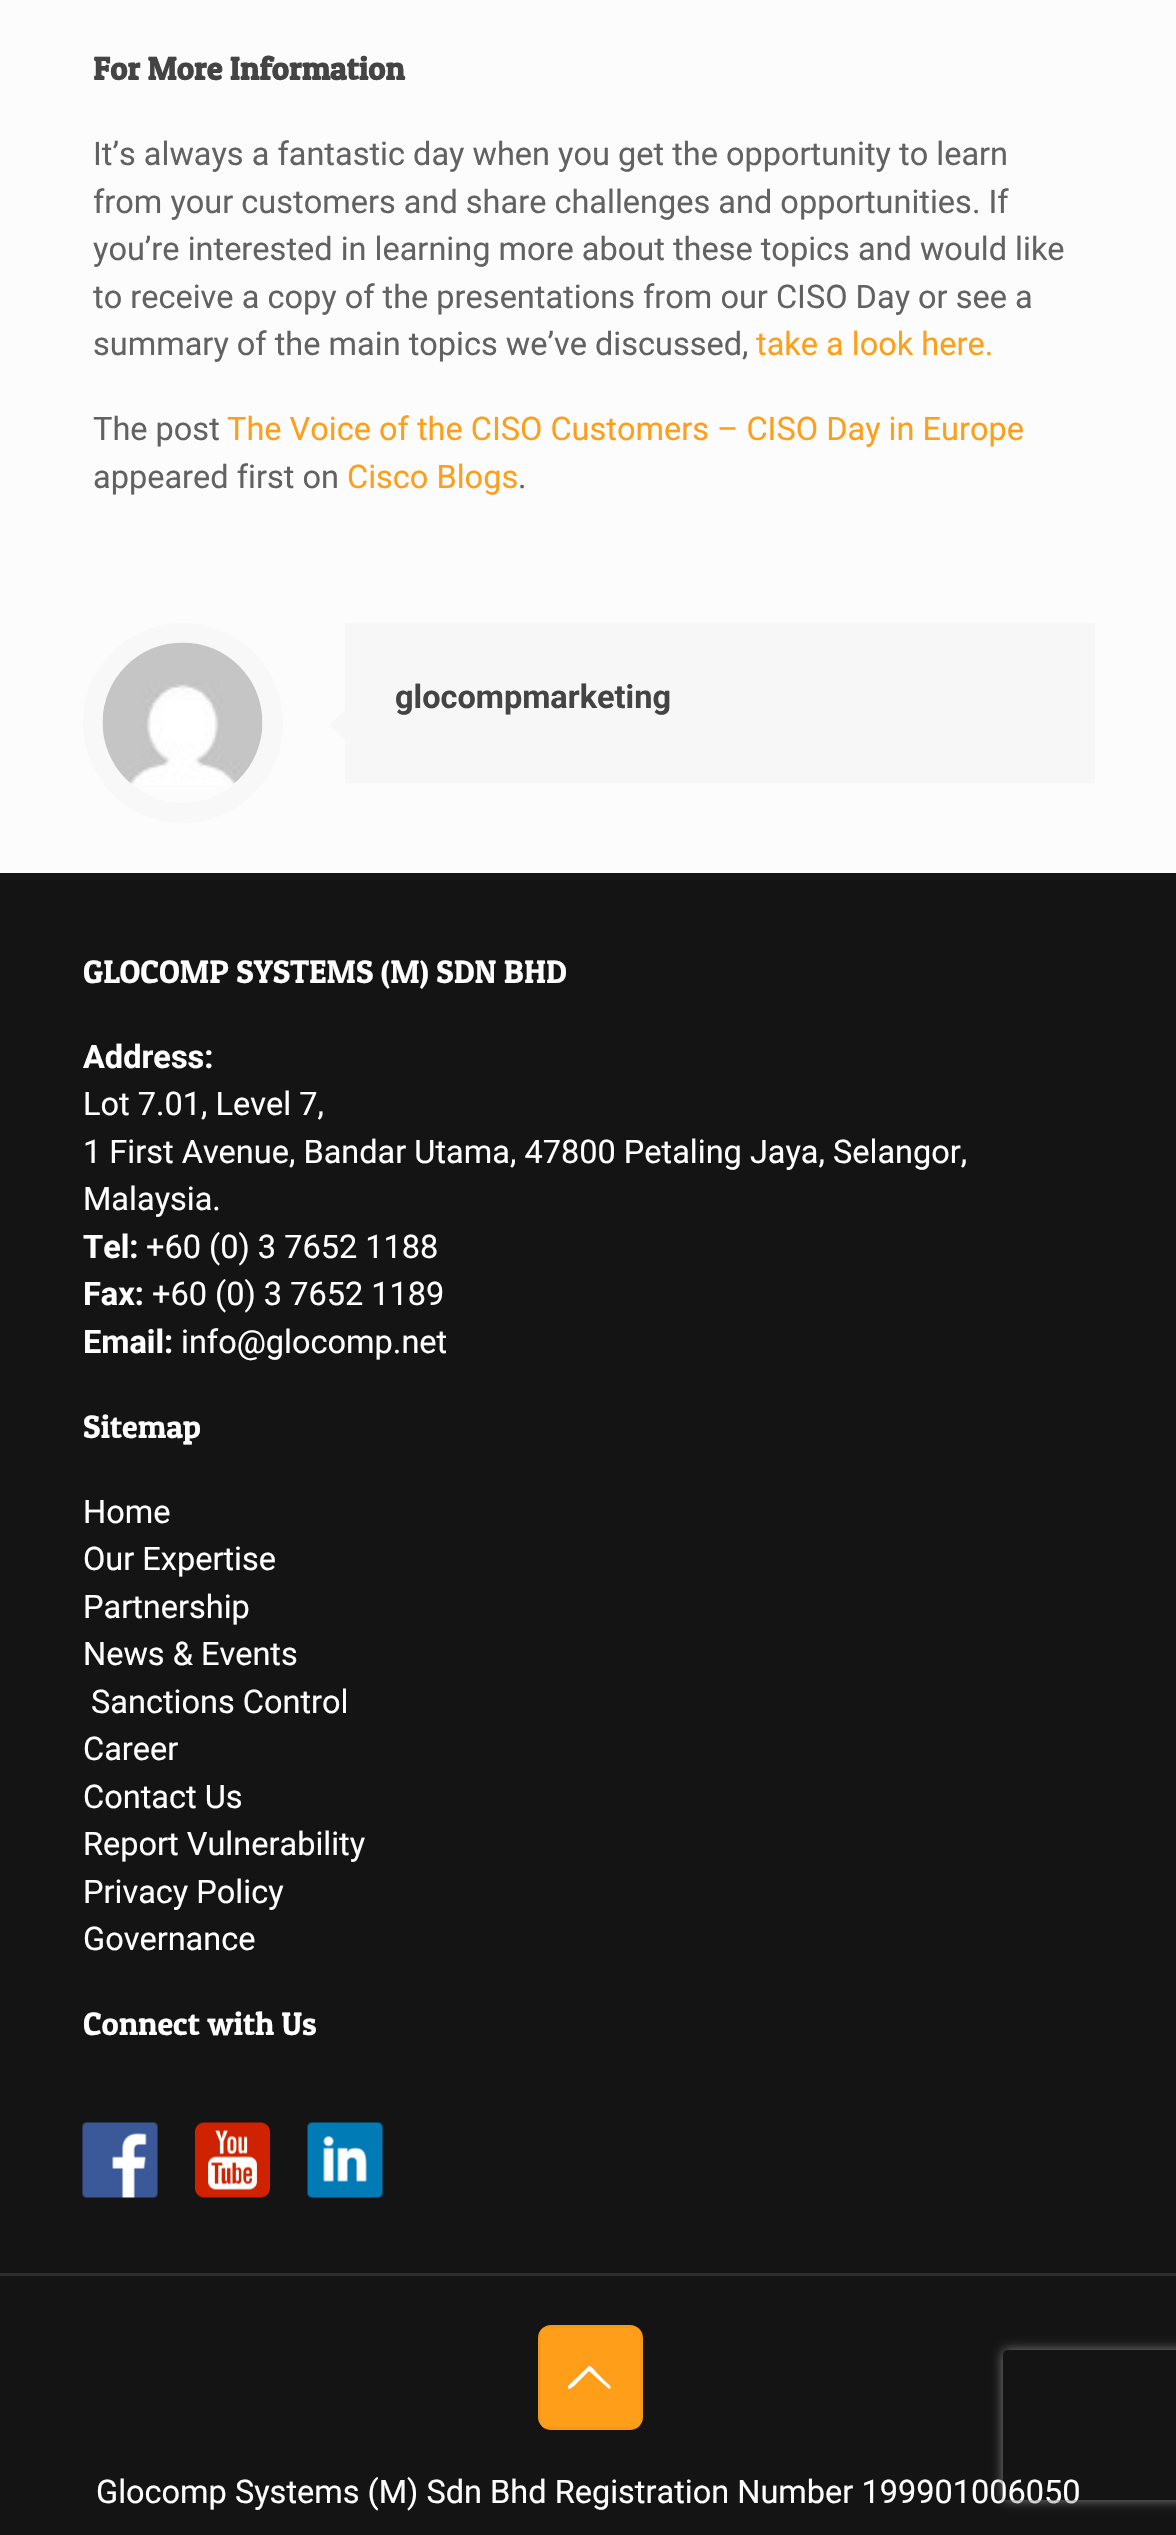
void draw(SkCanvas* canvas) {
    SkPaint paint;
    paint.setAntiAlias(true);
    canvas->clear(0xFFFCFCFC);
    SkFont font1(fontMgr->matchFamilyStyle("Patua One", SkFontStyle::Bold()), 32.5f);
    font1.setSubpixel(true);
    paint.setColor(0xFF444444);
    canvas->drawString("For More Information", 93, 80, font1, paint);
    SkFont font2(fontMgr->matchFamilyStyle("Roboto", SkFontStyle::Normal()), 32.5f);
    font2.setSubpixel(true);
    paint.setColor(0xFF626262);
    canvas->drawString("It’s always a fantastic day when you get the opportunity to learn", 93, 165, font2, paint);
    canvas->drawString("from your customers and share challenges and opportunities. If", 93, 213, font2, paint);
    canvas->drawString("you’re interested in learning more about these topics and would like", 93, 260, font2, paint);
    canvas->drawString("to receive a copy of the presentations from our CISO Day or see a", 93, 308, font2, paint);
    canvas->drawString("summary of the main topics we’ve discussed,", 93, 355, font2, paint);
    paint.setColor(0xFFFF9E18);
    canvas->drawString("take a look here.", 756, 355, font2, paint);
    paint.setColor(0xFF626262);
    canvas->drawString("The post", 93, 440, font2, paint);
    paint.setColor(0xFFFF9E18);
    canvas->drawString("The Voice of the CISO Customers – CISO Day in Europe", 227, 440, font2, paint);
    paint.setColor(0xFF626262);
    canvas->drawString("appeared first on", 93, 488, font2, paint);
    paint.setColor(0xFFFF9E18);
    canvas->drawString("Cisco Blogs", 347, 488, font2, paint);
    paint.setColor(0xFF626262);
    canvas->drawString(".", 518, 488, font2, paint);
    paint.setStyle(SkPaint::kStroke_Style);
    paint.setStrokeWidth(20);
    paint.setColor(0xFFF8F8F8);
    canvas->drawCircle(183, 723, 90, paint);
    canvas->drawImageRect(SkImages::DeferredFromEncodedData(SkData::MakeFromFileName("img1.png")), SkRect::MakeXYWH(102, 642, 161, 143), SkSamplingOptions());
    paint.setStyle(SkPaint::kFill_Style);
    paint.setColor(0xFFF7F7F7);
    canvas->drawRect(SkRect::MakeXYWH(345, 623, 750, 160), paint);
    SkFont font3(fontMgr->matchFamilyStyle("Roboto", SkFontStyle::Bold()), 32.5f);
    font3.setSubpixel(true);
    paint.setColor(0xFF444444);
    canvas->drawString("glocompmarketing", 395, 708, font3, paint);
    paint.setColor(0xFFF7F7F7);
    canvas->drawPath(SkPathBuilder().moveTo(345, 710).lineTo(345, 740).lineTo(330, 725).close().detach(), paint);
    paint.setColor(0xFF141414);
    canvas->drawRect(SkRect::MakeXYWH(0, 873, 1176, 1662), paint);
    SkFont font4(fontMgr->matchFamilyStyle("Patua One", SkFontStyle::Normal()), 32.5f);
    font4.setSubpixel(true);
    paint.setColor(0xFFFFFFFF);
    canvas->drawString("GLOCOMP SYSTEMS (M) SDN BHD", 83, 983, font4, paint);
    canvas->drawString("Address:", 83, 1068, font3, paint);
    canvas->drawString("Lot 7.01, Level 7,", 83, 1115, font2, paint);
    canvas->drawString("1 First Avenue, Bandar Utama, 47800 Petaling Jaya, Selangor,", 83, 1163, font2, paint);
    canvas->drawString("Malaysia.", 83, 1210, font2, paint);
    canvas->drawString("Tel:", 83, 1258, font3, paint);
    canvas->drawString("+60 (0) 3 7652 1188", 146, 1258, font2, paint);
    canvas->drawString("Fax:", 83, 1305, font3, paint);
    canvas->drawString("+60 (0) 3 7652 1189", 152, 1305, font2, paint);
    canvas->drawString("Email:", 83, 1353, font3, paint);
    canvas->drawString("info@glocomp.net", 181, 1353, font2, paint);
    canvas->drawString("Sitemap", 83, 1438, font4, paint);
    canvas->drawString("Home", 83, 1523, font2, paint);
    canvas->drawString("Our Expertise", 83, 1570, font2, paint);
    canvas->drawString("Partnership", 83, 1618, font2, paint);
    canvas->drawString("News & Events", 83, 1665, font2, paint);
    canvas->drawString("Sanctions Control", 91, 1713, font2, paint);
    canvas->drawString("Career", 83, 1760, font2, paint);
    canvas->drawString("Contact Us", 83, 1808, font2, paint);
    canvas->drawString("Report Vulnerability", 83, 1855, font2, paint);
    canvas->drawString("Privacy Policy", 83, 1903, font2, paint);
    canvas->drawString("Governance", 83, 1950, font2, paint);
    canvas->drawString("Connect with Us", 83, 2035, font4, paint);
    canvas->drawImageRect(SkImages::DeferredFromEncodedData(SkData::MakeFromFileName("img2.png")), SkRect::MakeXYWH(82, 2122, 76, 76), SkSamplingOptions());
    canvas->drawImageRect(SkImages::DeferredFromEncodedData(SkData::MakeFromFileName("img3.png")), SkRect::MakeXYWH(195, 2122, 75, 76), SkSamplingOptions());
    canvas->drawImageRect(SkImages::DeferredFromEncodedData(SkData::MakeFromFileName("img4.png")), SkRect::MakeXYWH(307, 2122, 76, 76), SkSamplingOptions());
    paint.setColor(0xFF2C2C2C);
    canvas->drawRect(SkRect::MakeXYWH(0, 2273, 1176, 3), paint);
    paint.setColor(0xFFFF9E18);
    canvas->drawRoundRect(SkRect::MakeXYWH(538, 2325, 105, 105), 13, 13, paint);
    paint.setStyle(SkPaint::kStroke_Style);
    paint.setStrokeWidth(3);
    paint.setColor(0x08000000);
    canvas->drawRect(SkRect::MakeXYWH(539.5f, 2326.5f, 102, 102), paint);
    paint.setStyle(SkPaint::kFill_Style);
    paint.setColor(0xFFFFFFFF);
    canvas->drawPath(SkPathBuilder().moveTo(608, 2388).lineTo(589, 2371).lineTo(574, 2386).cubicTo(573, 2386, 569, 2391, 568, 2388).lineTo(568, 2386).lineTo(589, 2366).cubicTo(591, 2365, 596, 2372, 597, 2373).lineTo(607, 2383).cubicTo(607, 2383, 614, 2388, 609, 2389).close().detach(), paint);
    canvas->drawString("Glocomp Systems (M) Sdn Bhd Registration Number 199901006050", 96, 2503, font2, paint);
    canvas->save();
    canvas->clipPath(SkPathBuilder(SkPathFillType::kEvenOdd).moveTo(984, 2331).lineTo(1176, 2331).lineTo(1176, 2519).lineTo(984, 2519).close().moveTo(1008, 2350).lineTo(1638, 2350).cubicTo(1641, 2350, 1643, 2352, 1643, 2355).lineTo(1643, 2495).cubicTo(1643, 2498, 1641, 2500, 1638, 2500).lineTo(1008, 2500).cubicTo(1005, 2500, 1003, 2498, 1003, 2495).lineTo(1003, 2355).cubicTo(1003, 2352, 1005, 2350, 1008, 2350).close().detach(), true);
    paint.setColor(0xFF808080);
    paint.setMaskFilter(SkMaskFilter::MakeBlur(kNormal_SkBlurStyle, 6));
    canvas->drawRoundRect(SkRect::MakeXYWH(1003, 2350, 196, 150), 5, 5, paint);
    paint.setMaskFilter(nullptr);
    canvas->restore();
}
